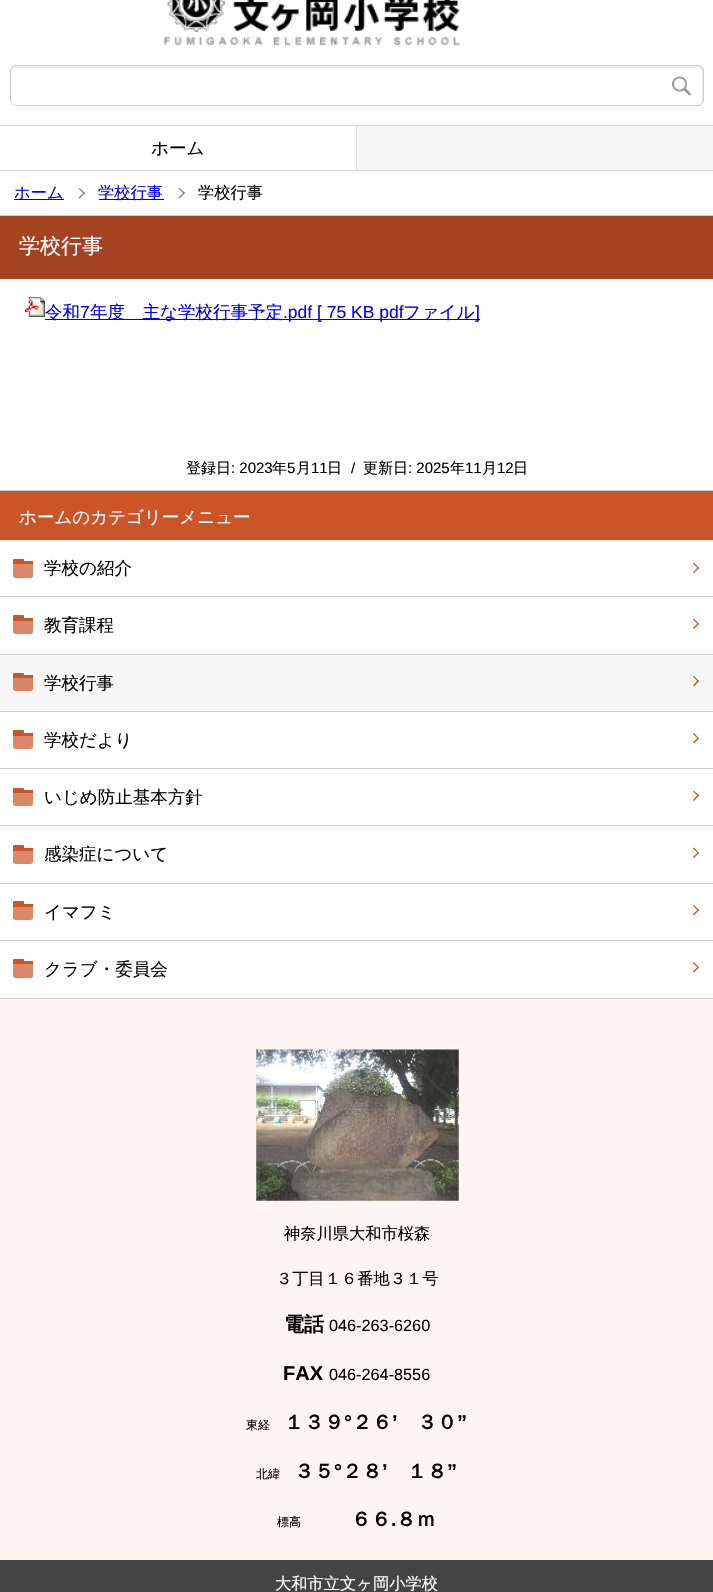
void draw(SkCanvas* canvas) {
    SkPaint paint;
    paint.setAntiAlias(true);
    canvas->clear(0xFFFFFFFF);
    canvas->drawImageRect(SkImages::DeferredFromEncodedData(SkData::MakeFromFileName("img1.png")), SkRect::MakeXYWH(163, 0, 298, 46), SkSamplingOptions());
    paint.setColor(0xFFECECEC);
    canvas->drawPath(SkPathBuilder().moveTo(16, 68).lineTo(698, 68).cubicTo(700, 68, 702, 70, 702, 72).lineTo(702, 101).lineTo(701, 104).cubicTo(702, 103, 703, 101, 703, 100).lineTo(703, 71).cubicTo(703, 68, 701, 66, 698, 66).lineTo(16, 66).cubicTo(13, 66, 11, 68, 11, 71).lineTo(11, 72).cubicTo(11, 70, 13, 68, 16, 68).close().detach(), paint);
    paint.setStyle(SkPaint::kStroke_Style);
    paint.setStrokeWidth(1);
    paint.setColor(0xFFCCCCCC);
    canvas->drawRoundRect(SkRect::MakeXYWH(10.5f, 65.5f, 693, 40), 5.5f, 5.5f, paint);
    canvas->drawImageRect(SkImages::DeferredFromEncodedData(SkData::MakeFromFileName("img2.png")), SkRect::MakeXYWH(672, 76, 20, 20), SkSamplingOptions());
    paint.setStyle(SkPaint::kFill_Style);
    paint.setColor(0xFFF7F7F7);
    canvas->drawRect(SkRect::MakeXYWH(357, 126, 356, 44), paint);
    paint.setColor(0xFFDDDDDD);
    canvas->drawRect(SkRect::MakeXYWH(0, 125, 713, 1), paint);
    canvas->drawRect(SkRect::MakeXYWH(0, 170, 713, 1), paint);
    canvas->drawRect(SkRect::MakeXYWH(356, 126, 1, 44), paint);
    SkFont font1(fontMgr->matchFamilyStyle("WenQuanYi Zen Hei", SkFontStyle(500, SkFontStyle::kNormal_Width, SkFontStyle::kUpright_Slant)), 17.5f);
    font1.setSubpixel(true);
    paint.setColor(0xFF000000);
    canvas->drawString("ホーム", 151, 154, font1, paint);
    paint.setColor(0xFFCCCCCC);
    canvas->drawRect(SkRect::MakeXYWH(0, 215, 713, 1), paint);
    paint.setColor(0xFF0000EE);
    canvas->drawRect(SkRect::MakeXYWH(14, 199, 50, 1), paint);
    SkFont font2(fontMgr->matchFamilyStyle("WenQuanYi Zen Hei", SkFontStyle(500, SkFontStyle::kNormal_Width, SkFontStyle::kUpright_Slant)), 16.25f);
    font2.setSubpixel(true);
    canvas->drawString("ホーム", 14, 198, font2, paint);
    paint.setColor(0xFF777777);
    canvas->drawPath(SkPathBuilder().moveTo(79.5f, 188).lineTo(85, 193).lineTo(84, 194).lineTo(78.5f, 188.5f).close().detach(), paint);
    canvas->drawPath(SkPathBuilder().moveTo(84, 192.5f).lineTo(85, 193).lineTo(79.5f, 198.5f).lineTo(78.5f, 197.5f).close().detach(), paint);
    paint.setColor(0xFF0000EE);
    canvas->drawRect(SkRect::MakeXYWH(99, 199, 65, 1), paint);
    canvas->drawString("学校行事", 98, 198, font2, paint);
    paint.setColor(0xFF777777);
    canvas->drawPath(SkPathBuilder().moveTo(179.5f, 188).lineTo(185, 193).lineTo(184, 194).lineTo(178.5f, 188.5f).close().detach(), paint);
    canvas->drawPath(SkPathBuilder().moveTo(184, 192.5f).lineTo(185, 193).lineTo(179.5f, 198.5f).lineTo(178.5f, 197.5f).close().detach(), paint);
    paint.setColor(0xFF000000);
    canvas->drawString("学校行事", 198, 198, font2, paint);
    paint.setColor(0xFFCCCCCC);
    canvas->drawRect(SkRect::MakeXYWH(0, 490, 713, 1), paint);
    paint.setColor(0xFFA34321);
    canvas->drawRect(SkRect::MakeXYWH(0, 216, 713, 63), paint);
    SkFont font3(fontMgr->matchFamilyStyle("WenQuanYi Zen Hei", SkFontStyle(500, SkFontStyle::kNormal_Width, SkFontStyle::kUpright_Slant)), 21);
    font3.setSubpixel(true);
    paint.setColor(0xFFFFFFFF);
    canvas->drawString("学校行事", 19, 253, font3, paint);
    canvas->drawImageRect(SkImages::DeferredFromEncodedData(SkData::MakeFromFileName("img3.png")), SkRect::MakeXYWH(25, 297, 20, 20), SkSamplingOptions());
    paint.setColor(0xFF0000EE);
    canvas->drawRect(SkRect::MakeXYWH(45, 319, 435, 1), paint);
    canvas->drawString("令和", 45, 318, font1, paint);
    SkFont font4(fontMgr->matchFamilyStyle("Liberation Sans", SkFontStyle::Normal()), 17.5f);
    font4.setSubpixel(true);
    canvas->drawString("7", 80, 318, font4, paint);
    canvas->drawString("年度　主な学校行事予定", 90, 318, font1, paint);
    canvas->drawString(".pdf [ 75 KB pdf", 283, 318, font4, paint);
    canvas->drawString("ファイル", 403, 318, font1, paint);
    canvas->drawString("]", 475, 318, font4, paint);
    SkFont font5(fontMgr->matchFamilyStyle("WenQuanYi Zen Hei", SkFontStyle(500, SkFontStyle::kNormal_Width, SkFontStyle::kUpright_Slant)), 15);
    font5.setSubpixel(true);
    paint.setColor(0xFF000000);
    canvas->drawString("登録日", 186, 473, font5, paint);
    SkFont font6(fontMgr->matchFamilyStyle("Liberation Sans", SkFontStyle::Normal()), 15);
    font6.setSubpixel(true);
    canvas->drawString(": 2023", 231, 473, font6, paint);
    canvas->drawString("年", 272, 473, font5, paint);
    canvas->drawString("5", 287, 473, font6, paint);
    canvas->drawString("月", 296, 473, font5, paint);
    canvas->drawString("11", 311, 473, font6, paint);
    canvas->drawString("日", 327, 473, font5, paint);
    canvas->drawString("/", 351, 473, font6, paint);
    canvas->drawString("更新日", 363, 473, font5, paint);
    canvas->drawString(": 2025", 408, 473, font6, paint);
    canvas->drawString("年", 450, 473, font5, paint);
    canvas->drawString("11", 465, 473, font6, paint);
    canvas->drawString("月", 482, 473, font5, paint);
    canvas->drawString("12", 497, 473, font6, paint);
    canvas->drawString("日", 513, 473, font5, paint);
    paint.setColor(0xFFFDF5F3);
    canvas->drawRect(SkRect::MakeXYWH(0, 999, 713, 561), paint);
    paint.setColor(0xFFCC5429);
    canvas->drawRect(SkRect::MakeXYWH(0, 491, 713, 49), paint);
    paint.setColor(0xFFFFFFFF);
    canvas->drawString("ホームのカテゴリーメニュー", 19, 523, font1, paint);
    paint.setColor(0xFFCCCCCC);
    canvas->drawRect(SkRect::MakeXYWH(0, 998, 713, 1), paint);
    paint.setColor(0xFFCC5429);
    canvas->drawPath(SkPathBuilder().moveTo(14, 559).lineTo(23, 559).cubicTo(23.5f, 559, 24, 559.5f, 24, 560).lineTo(24, 563).lineTo(13, 563).lineTo(13, 560).cubicTo(13, 559.5f, 13.5f, 559, 14, 559).close().detach(), paint);
    paint.setColor(0xFF000000);
    canvas->drawString("学校の紹介", 44, 574, font1, paint);
    paint.setColor(0xB3CC5429);
    canvas->drawPath(SkPathBuilder().moveTo(13, 561).lineTo(32, 561).cubicTo(32.5f, 561, 33, 561.5f, 33, 562).lineTo(33, 575.5f).cubicTo(33, 577, 32, 578, 30.5f, 578).lineTo(15.5f, 578).cubicTo(14, 578, 13, 577, 13, 575.5f).close().detach(), paint);
    paint.setColor(0xFFCC5429);
    canvas->drawRect(SkRect::MakeXYWH(13, 561, 20, 3), paint);
    canvas->drawPath(SkPathBuilder().moveTo(694, 562.5f).lineTo(699, 568).lineTo(698, 568.5f).lineTo(693, 563.5f).close().detach(), paint);
    canvas->drawPath(SkPathBuilder().moveTo(698, 567).lineTo(699, 568).lineTo(694, 573).lineTo(693, 572.5f).close().detach(), paint);
    paint.setColor(0xFFCCCCCC);
    canvas->drawRect(SkRect::MakeXYWH(0, 596, 713, 1), paint);
    paint.setColor(0xFFCC5429);
    canvas->drawPath(SkPathBuilder().moveTo(14, 615).lineTo(23, 615).cubicTo(23.5f, 615, 24, 615.5f, 24, 616).lineTo(24, 619).lineTo(13, 619).lineTo(13, 616).cubicTo(13, 615.5f, 13.5f, 615, 14, 615).close().detach(), paint);
    paint.setColor(0xFF000000);
    canvas->drawString("教育課程", 44, 631, font1, paint);
    paint.setColor(0xB3CC5429);
    canvas->drawPath(SkPathBuilder().moveTo(13, 618).lineTo(32, 618).cubicTo(32.5f, 618, 33, 618.5f, 33, 619).lineTo(33, 631.5f).cubicTo(33, 633, 32, 634, 30.5f, 634).lineTo(15.5f, 634).cubicTo(14, 634, 13, 633, 13, 631.5f).close().detach(), paint);
    paint.setColor(0xFFCC5429);
    canvas->drawRect(SkRect::MakeXYWH(13, 618, 20, 3), paint);
    canvas->drawPath(SkPathBuilder().moveTo(694, 618.5f).lineTo(699, 624).lineTo(698, 624.5f).lineTo(693, 619.5f).close().detach(), paint);
    canvas->drawPath(SkPathBuilder().moveTo(698, 623).lineTo(699, 624).lineTo(694, 629).lineTo(693, 628).close().detach(), paint);
    paint.setColor(0xFFF7F7F7);
    canvas->drawRect(SkRect::MakeXYWH(0, 655, 713, 56), paint);
    paint.setColor(0xFFCCCCCC);
    canvas->drawRect(SkRect::MakeXYWH(0, 654, 713, 1), paint);
    paint.setColor(0xFFCC5429);
    canvas->drawPath(SkPathBuilder().moveTo(14, 673).lineTo(23, 673).cubicTo(23.5f, 673, 24, 673.5f, 24, 674).lineTo(24, 677).lineTo(13, 677).lineTo(13, 674).cubicTo(13, 673.5f, 13.5f, 673, 14, 673).close().detach(), paint);
    paint.setColor(0xFF000000);
    canvas->drawString("学校行事", 44, 689, font1, paint);
    paint.setColor(0xB3CC5429);
    canvas->drawPath(SkPathBuilder().moveTo(13, 675).lineTo(32, 675).cubicTo(32.5f, 675, 33, 675.5f, 33, 676).lineTo(33, 688.5f).cubicTo(33, 690, 32, 691, 30.5f, 691).lineTo(15.5f, 691).cubicTo(14, 691, 13, 690, 13, 688.5f).close().detach(), paint);
    paint.setColor(0xFFCC5429);
    canvas->drawRect(SkRect::MakeXYWH(13, 675, 20, 3), paint);
    canvas->drawPath(SkPathBuilder().moveTo(694, 676).lineTo(699, 681).lineTo(698, 682).lineTo(693, 676.5f).close().detach(), paint);
    canvas->drawPath(SkPathBuilder().moveTo(698, 680).lineTo(699, 681).lineTo(694, 686.5f).lineTo(693, 685.5f).close().detach(), paint);
    paint.setColor(0xFFCCCCCC);
    canvas->drawRect(SkRect::MakeXYWH(0, 711, 713, 1), paint);
    paint.setColor(0xFFCC5429);
    canvas->drawPath(SkPathBuilder().moveTo(14, 730).lineTo(23, 730).cubicTo(23.5f, 730, 24, 730.5f, 24, 731).lineTo(24, 734).lineTo(13, 734).lineTo(13, 731).cubicTo(13, 730.5f, 13.5f, 730, 14, 730).close().detach(), paint);
    paint.setColor(0xFF000000);
    canvas->drawString("学校だより", 44, 746, font1, paint);
    paint.setColor(0xB3CC5429);
    canvas->drawPath(SkPathBuilder().moveTo(13, 733).lineTo(32, 733).cubicTo(32.5f, 733, 33, 733.5f, 33, 734).lineTo(33, 746.5f).cubicTo(33, 748, 32, 749, 30.5f, 749).lineTo(15.5f, 749).cubicTo(14, 749, 13, 748, 13, 746.5f).close().detach(), paint);
    paint.setColor(0xFFCC5429);
    canvas->drawRect(SkRect::MakeXYWH(13, 733, 20, 3), paint);
    canvas->drawPath(SkPathBuilder().moveTo(694, 733).lineTo(699, 738.5f).lineTo(698, 739).lineTo(693, 734).close().detach(), paint);
    canvas->drawPath(SkPathBuilder().moveTo(698, 737.5f).lineTo(699, 738.5f).lineTo(694, 743.5f).lineTo(693, 742.5f).close().detach(), paint);
    paint.setColor(0xFFCCCCCC);
    canvas->drawRect(SkRect::MakeXYWH(0, 768, 713, 1), paint);
    paint.setColor(0xFFCC5429);
    canvas->drawPath(SkPathBuilder().moveTo(14, 788).lineTo(23, 788).cubicTo(23.5f, 788, 24, 788.5f, 24, 789).lineTo(24, 792).lineTo(13, 792).lineTo(13, 789).cubicTo(13, 788.5f, 13.5f, 788, 14, 788).close().detach(), paint);
    paint.setColor(0xFF000000);
    canvas->drawString("いじめ防止基本方針", 44, 803, font1, paint);
    paint.setColor(0xB3CC5429);
    canvas->drawPath(SkPathBuilder().moveTo(13, 790).lineTo(32, 790).cubicTo(32.5f, 790, 33, 790.5f, 33, 791).lineTo(33, 803.5f).cubicTo(33, 805, 32, 806, 30.5f, 806).lineTo(15.5f, 806).cubicTo(14, 806, 13, 805, 13, 803.5f).close().detach(), paint);
    paint.setColor(0xFFCC5429);
    canvas->drawRect(SkRect::MakeXYWH(13, 790, 20, 3), paint);
    canvas->drawPath(SkPathBuilder().moveTo(694, 790.5f).lineTo(699, 795.5f).lineTo(698, 796.5f).lineTo(693, 791).close().detach(), paint);
    canvas->drawPath(SkPathBuilder().moveTo(698, 794.5f).lineTo(699, 795.5f).lineTo(694, 801).lineTo(693, 800).close().detach(), paint);
    paint.setColor(0xFFCCCCCC);
    canvas->drawRect(SkRect::MakeXYWH(0, 825, 713, 1), paint);
    paint.setColor(0xFFCC5429);
    canvas->drawPath(SkPathBuilder().moveTo(14, 845).lineTo(23, 845).cubicTo(23.5f, 845, 24, 845.5f, 24, 846).lineTo(24, 849).lineTo(13, 849).lineTo(13, 846).cubicTo(13, 845.5f, 13.5f, 845, 14, 845).close().detach(), paint);
    paint.setColor(0xFF000000);
    canvas->drawString("感染症について", 44, 860, font1, paint);
    paint.setColor(0xB3CC5429);
    canvas->drawPath(SkPathBuilder().moveTo(13, 848).lineTo(32, 848).cubicTo(32.5f, 848, 33, 848.5f, 33, 849).lineTo(33, 861.5f).cubicTo(33, 863, 32, 864, 30.5f, 864).lineTo(15.5f, 864).cubicTo(14, 864, 13, 863, 13, 861.5f).close().detach(), paint);
    paint.setColor(0xFFCC5429);
    canvas->drawRect(SkRect::MakeXYWH(13, 848, 20, 3), paint);
    canvas->drawPath(SkPathBuilder().moveTo(694, 847.5f).lineTo(699, 853).lineTo(698, 853.5f).lineTo(693, 848.5f).close().detach(), paint);
    canvas->drawPath(SkPathBuilder().moveTo(698, 852).lineTo(699, 853).lineTo(694, 858).lineTo(693, 857).close().detach(), paint);
    paint.setColor(0xFFCCCCCC);
    canvas->drawRect(SkRect::MakeXYWH(0, 883, 713, 1), paint);
    paint.setColor(0xFFCC5429);
    canvas->drawPath(SkPathBuilder().moveTo(14, 901).lineTo(23, 901).cubicTo(23.5f, 901, 24, 901.5f, 24, 902).lineTo(24, 905).lineTo(13, 905).lineTo(13, 902).cubicTo(13, 901.5f, 13.5f, 901, 14, 901).close().detach(), paint);
    paint.setColor(0xB3CC5429);
    canvas->drawPath(SkPathBuilder().moveTo(13, 904).lineTo(32, 904).cubicTo(32.5f, 904, 33, 904.5f, 33, 905).lineTo(33, 917.5f).cubicTo(33, 919, 32, 920, 30.5f, 920).lineTo(15.5f, 920).cubicTo(14, 920, 13, 919, 13, 917.5f).close().detach(), paint);
    paint.setColor(0xFFCC5429);
    canvas->drawRect(SkRect::MakeXYWH(13, 904, 20, 3), paint);
    paint.setColor(0xFF000000);
    canvas->drawString("イマフミ", 44, 918, font1, paint);
    paint.setColor(0xFFCC5429);
    canvas->drawPath(SkPathBuilder().moveTo(694, 905).lineTo(699, 910).lineTo(698, 911).lineTo(693, 905.5f).close().detach(), paint);
    canvas->drawPath(SkPathBuilder().moveTo(698, 909).lineTo(699, 910).lineTo(694, 915.5f).lineTo(693, 914.5f).close().detach(), paint);
    paint.setColor(0xFFCCCCCC);
    canvas->drawRect(SkRect::MakeXYWH(0, 940, 713, 1), paint);
    paint.setColor(0xFFCC5429);
    canvas->drawPath(SkPathBuilder().moveTo(14, 959).lineTo(23, 959).cubicTo(23.5f, 959, 24, 959.5f, 24, 960).lineTo(24, 963).lineTo(13, 963).lineTo(13, 960).cubicTo(13, 959.5f, 13.5f, 959, 14, 959).close().detach(), paint);
    paint.setColor(0xFF000000);
    canvas->drawString("クラブ・委員会", 44, 975, font1, paint);
    paint.setColor(0xB3CC5429);
    canvas->drawPath(SkPathBuilder().moveTo(13, 961).lineTo(32, 961).cubicTo(32.5f, 961, 33, 961.5f, 33, 962).lineTo(33, 975.5f).cubicTo(33, 977, 32, 978, 30.5f, 978).lineTo(15.5f, 978).cubicTo(14, 978, 13, 977, 13, 975.5f).close().detach(), paint);
    paint.setColor(0xFFCC5429);
    canvas->drawRect(SkRect::MakeXYWH(13, 961, 20, 3), paint);
    canvas->drawPath(SkPathBuilder().moveTo(694, 962).lineTo(699, 967.5f).lineTo(698, 968).lineTo(693, 963).close().detach(), paint);
    canvas->drawPath(SkPathBuilder().moveTo(698, 966.5f).lineTo(699, 967.5f).lineTo(694, 972.5f).lineTo(693, 971.5f).close().detach(), paint);
    canvas->drawImageRect(SkImages::DeferredFromEncodedData(SkData::MakeFromFileName("img4.png")), SkRect::MakeXYWH(256, 1049, 203, 152), SkSamplingOptions());
    paint.setColor(0xFF000000);
    canvas->drawString("神奈川県大和市桜森", 284, 1239, font2, paint);
    canvas->drawString("３丁目１６番地３１号", 276, 1284, font2, paint);
    SkFont font7(fontMgr->matchFamilyStyle("WenQuanYi Zen Hei", SkFontStyle::Bold()), 20);
    font7.setSubpixel(true);
    canvas->drawString("電話", 284, 1331, font7, paint);
    SkFont font8(fontMgr->matchFamilyStyle("Liberation Sans", SkFontStyle::Normal()), 16.25f);
    font8.setSubpixel(true);
    canvas->drawString("046-263-6260", 329, 1331, font8, paint);
    SkFont font9(fontMgr->matchFamilyStyle("Liberation Sans", SkFontStyle::Bold()), 20);
    font9.setSubpixel(true);
    canvas->drawString("FAX", 283, 1380, font9, paint);
    canvas->drawString("046-264-8556", 329, 1380, font8, paint);
    SkFont font10(fontMgr->matchFamilyStyle("WenQuanYi Zen Hei", SkFontStyle(500, SkFontStyle::kNormal_Width, SkFontStyle::kUpright_Slant)), 12);
    font10.setSubpixel(true);
    canvas->drawString("東経", 246, 1429, font10, paint);
    canvas->drawString("１３９", 284, 1429, font7, paint);
    canvas->drawString("°", 344, 1429, font9, paint);
    canvas->drawString("２６", 352, 1429, font7, paint);
    canvas->drawString("’", 392, 1429, font9, paint);
    canvas->drawString("３０", 417, 1429, font7, paint);
    canvas->drawString("”", 457, 1429, font9, paint);
    canvas->drawString("北緯", 256, 1478, font10, paint);
    canvas->drawString("３５", 294, 1478, font7, paint);
    canvas->drawString("°", 334, 1478, font9, paint);
    canvas->drawString("２８", 342, 1478, font7, paint);
    canvas->drawString("’", 382, 1478, font9, paint);
    canvas->drawString("１８", 407, 1478, font7, paint);
    canvas->drawString("”", 447, 1478, font9, paint);
    canvas->drawString("標高", 277, 1526, font10, paint);
    canvas->drawString("６６", 351, 1526, font7, paint);
    canvas->drawString(".", 391, 1526, font9, paint);
    canvas->drawString("８ｍ", 396, 1526, font7, paint);
    paint.setColor(0xFF444444);
    canvas->drawRect(SkRect::MakeXYWH(0, 1560, 713, 32), paint);
    paint.setColor(0xFFFFFFFF);
    canvas->drawString("大和市立文ヶ岡小学校", 275, 1589, font2, paint);
}
